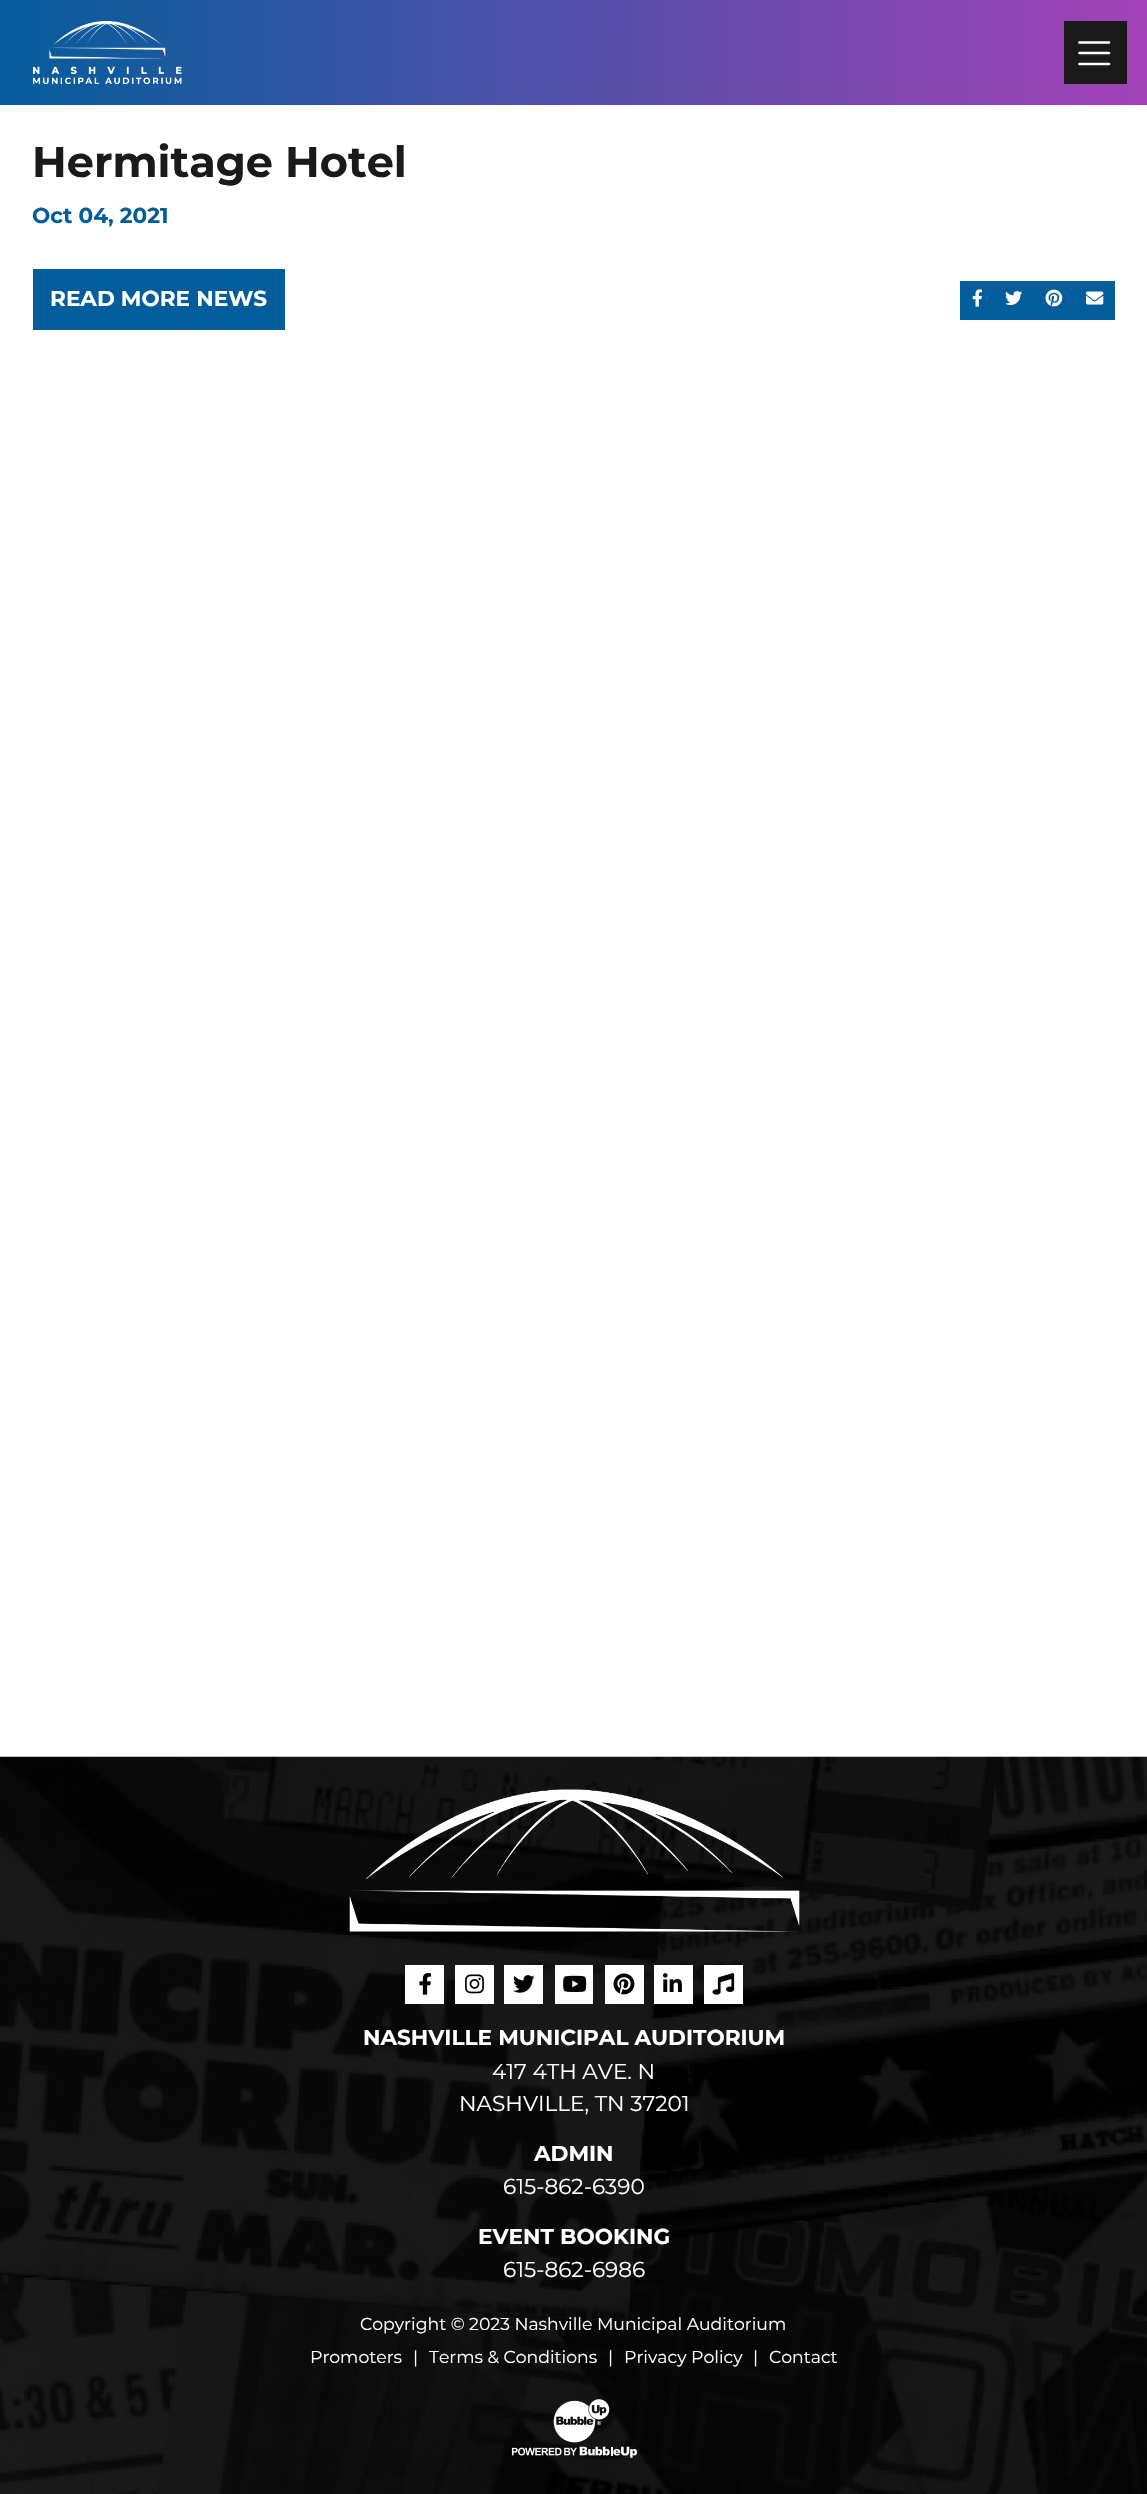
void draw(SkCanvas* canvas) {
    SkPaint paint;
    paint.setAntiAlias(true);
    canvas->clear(0xFFFFFFFF);
    {
        const SkColor colors[] = {0xFF045D9B, 0xFFA342B8};
        const float stops[] = {0, 1};
        const SkPoint ends[] = {{0, 53}, {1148, 52}};
        paint.setShader(SkGradientShader::MakeLinear(ends, colors, stops, 2, SkTileMode::kClamp));
        paint.setAlpha(255);
    }
    canvas->drawRect(SkRect::MakeXYWH(0, 0, 1147, 105), paint);
    canvas->drawImageRect(SkImages::DeferredFromEncodedData(SkData::MakeFromFileName("img1.png")), SkRect::MakeXYWH(33, 21, 149, 63), SkSamplingOptions());
    paint.setShader(nullptr);
    paint.setColor(0xFF1A1A1A);
    canvas->drawRect(SkRect::MakeXYWH(1064, 21, 63, 63), paint);
    paint.setStyle(SkPaint::kStroke_Style);
    paint.setStrokeWidth(2.7f);
    paint.setStrokeCap(SkPaint::kRound_Cap);
    paint.setColor(0xFFFFFFFF);
    canvas->drawPath(SkPathBuilder().moveTo(1079.5f, 42.5f).lineTo(1109, 42.5f).moveTo(1079.5f, 53).lineTo(1109, 53).moveTo(1079.5f, 64).lineTo(1109, 64).detach(), paint);
    SkFont font1(fontMgr->matchFamilyStyle("Montserrat", SkFontStyle::Bold()), 43);
    font1.setSubpixel(true);
    paint.setStyle(SkPaint::kFill_Style);
    paint.setColor(0xFF1A1A1A);
    canvas->drawString("Hermitage Hotel", 32, 177, font1, paint);
    SkFont font2(fontMgr->matchFamilyStyle("Montserrat", SkFontStyle::Bold()), 21.6f);
    font2.setSubpixel(true);
    paint.setColor(0xFF045D9B);
    canvas->drawString("Oct 04, 2021", 32, 223, font2, paint);
    canvas->drawRect(SkRect::MakeXYWH(33, 269, 252, 61), paint);
    paint.setColor(0xFFFFFFFF);
    canvas->drawString("READ MORE NEWS", 50, 306, font2, paint);
    paint.setColor(0xFF045D9B);
    canvas->drawRect(SkRect::MakeXYWH(960, 281, 155, 39), paint);
    canvas->drawImageRect(SkImages::DeferredFromEncodedData(SkData::MakeFromFileName("img2.png")), SkRect::MakeXYWH(972, 289, 11, 18), SkSamplingOptions());
    canvas->drawImageRect(SkImages::DeferredFromEncodedData(SkData::MakeFromFileName("img3.png")), SkRect::MakeXYWH(1005, 291, 18, 14), SkSamplingOptions());
    canvas->drawImageRect(SkImages::DeferredFromEncodedData(SkData::MakeFromFileName("img4.png")), SkRect::MakeXYWH(1045, 289, 18, 18), SkSamplingOptions());
    canvas->drawImageRect(SkImages::DeferredFromEncodedData(SkData::MakeFromFileName("img5.png")), SkRect::MakeXYWH(1086, 291, 18, 14), SkSamplingOptions());
    canvas->drawImageRect(SkImages::DeferredFromEncodedData(SkData::MakeFromFileName("img6.png")), SkRect::MakeXYWH(0, 1756, 1147, 738), SkSamplingOptions());
    canvas->drawImageRect(SkImages::DeferredFromEncodedData(SkData::MakeFromFileName("img7.png")), SkRect::MakeXYWH(349, 1789, 451, 143), SkSamplingOptions());
    paint.setColor(0xFFFFFFFF);
    canvas->drawRect(SkRect::MakeXYWH(405, 1965, 39, 39), paint);
    canvas->drawImageRect(SkImages::DeferredFromEncodedData(SkData::MakeFromFileName("img8.png")), SkRect::MakeXYWH(419, 1973, 13, 22), SkSamplingOptions());
    canvas->drawRect(SkRect::MakeXYWH(455, 1965, 39, 39), paint);
    canvas->drawImageRect(SkImages::DeferredFromEncodedData(SkData::MakeFromFileName("img9.png")), SkRect::MakeXYWH(465, 1974, 19, 20), SkSamplingOptions());
    canvas->drawRect(SkRect::MakeXYWH(504, 1965, 39, 39), paint);
    canvas->drawImageRect(SkImages::DeferredFromEncodedData(SkData::MakeFromFileName("img10.png")), SkRect::MakeXYWH(513, 1975, 22, 18), SkSamplingOptions());
    canvas->drawRect(SkRect::MakeXYWH(555, 1965, 38, 39), paint);
    canvas->drawImageRect(SkImages::DeferredFromEncodedData(SkData::MakeFromFileName("img11.png")), SkRect::MakeXYWH(563, 1975, 24, 17), SkSamplingOptions());
    canvas->drawRect(SkRect::MakeXYWH(605, 1965, 39, 39), paint);
    canvas->drawImageRect(SkImages::DeferredFromEncodedData(SkData::MakeFromFileName("img12.png")), SkRect::MakeXYWH(613, 1973, 22, 22), SkSamplingOptions());
    canvas->drawRect(SkRect::MakeXYWH(654, 1965, 39, 39), paint);
    canvas->drawImageRect(SkImages::DeferredFromEncodedData(SkData::MakeFromFileName("img13.png")), SkRect::MakeXYWH(663, 1973, 19, 19), SkSamplingOptions());
    canvas->drawRect(SkRect::MakeXYWH(704, 1965, 39, 39), paint);
    canvas->drawImageRect(SkImages::DeferredFromEncodedData(SkData::MakeFromFileName("img14.png")), SkRect::MakeXYWH(712, 1973, 23, 22), SkSamplingOptions());
    canvas->drawString("NASHVILLE MUNICIPAL AUDITORIUM", 363, 2045, font2, paint);
    SkFont font3(fontMgr->matchFamilyStyle("Montserrat", SkFontStyle::Normal()), 21.6f);
    font3.setSubpixel(true);
    canvas->drawString("417 4TH AVE. N", 492, 2079, font3, paint);
    canvas->drawString("NASHVILLE, TN 37201", 459, 2111, font3, paint);
    canvas->drawString("ADMIN", 534, 2161, font2, paint);
    canvas->drawString("615-862-6390", 503, 2194, font3, paint);
    canvas->drawString("EVENT BOOKING", 478, 2244, font2, paint);
    canvas->drawString("615-862-6986", 503, 2277, font3, paint);
    SkFont font4(fontMgr->matchFamilyStyle("Montserrat", SkFontStyle::Normal()), 17.25f);
    font4.setSubpixel(true);
    canvas->drawString("Copyright © 2023 Nashville Municipal Auditorium", 360, 2330, font4, paint);
    canvas->drawString("Promoters", 310, 2363, font4, paint);
    canvas->drawString("|", 413, 2363, font4, paint);
    canvas->drawString("Terms & Conditions", 429, 2363, font4, paint);
    canvas->drawString("|", 608, 2363, font4, paint);
    canvas->drawString("Privacy Policy", 624, 2363, font4, paint);
    canvas->drawString("|", 753, 2363, font4, paint);
    canvas->drawString("Contact", 769, 2363, font4, paint);
    canvas->drawImageRect(SkImages::DeferredFromEncodedData(SkData::MakeFromFileName("img15.png")), SkRect::MakeXYWH(511, 2399, 126, 59), SkSamplingOptions());
}
